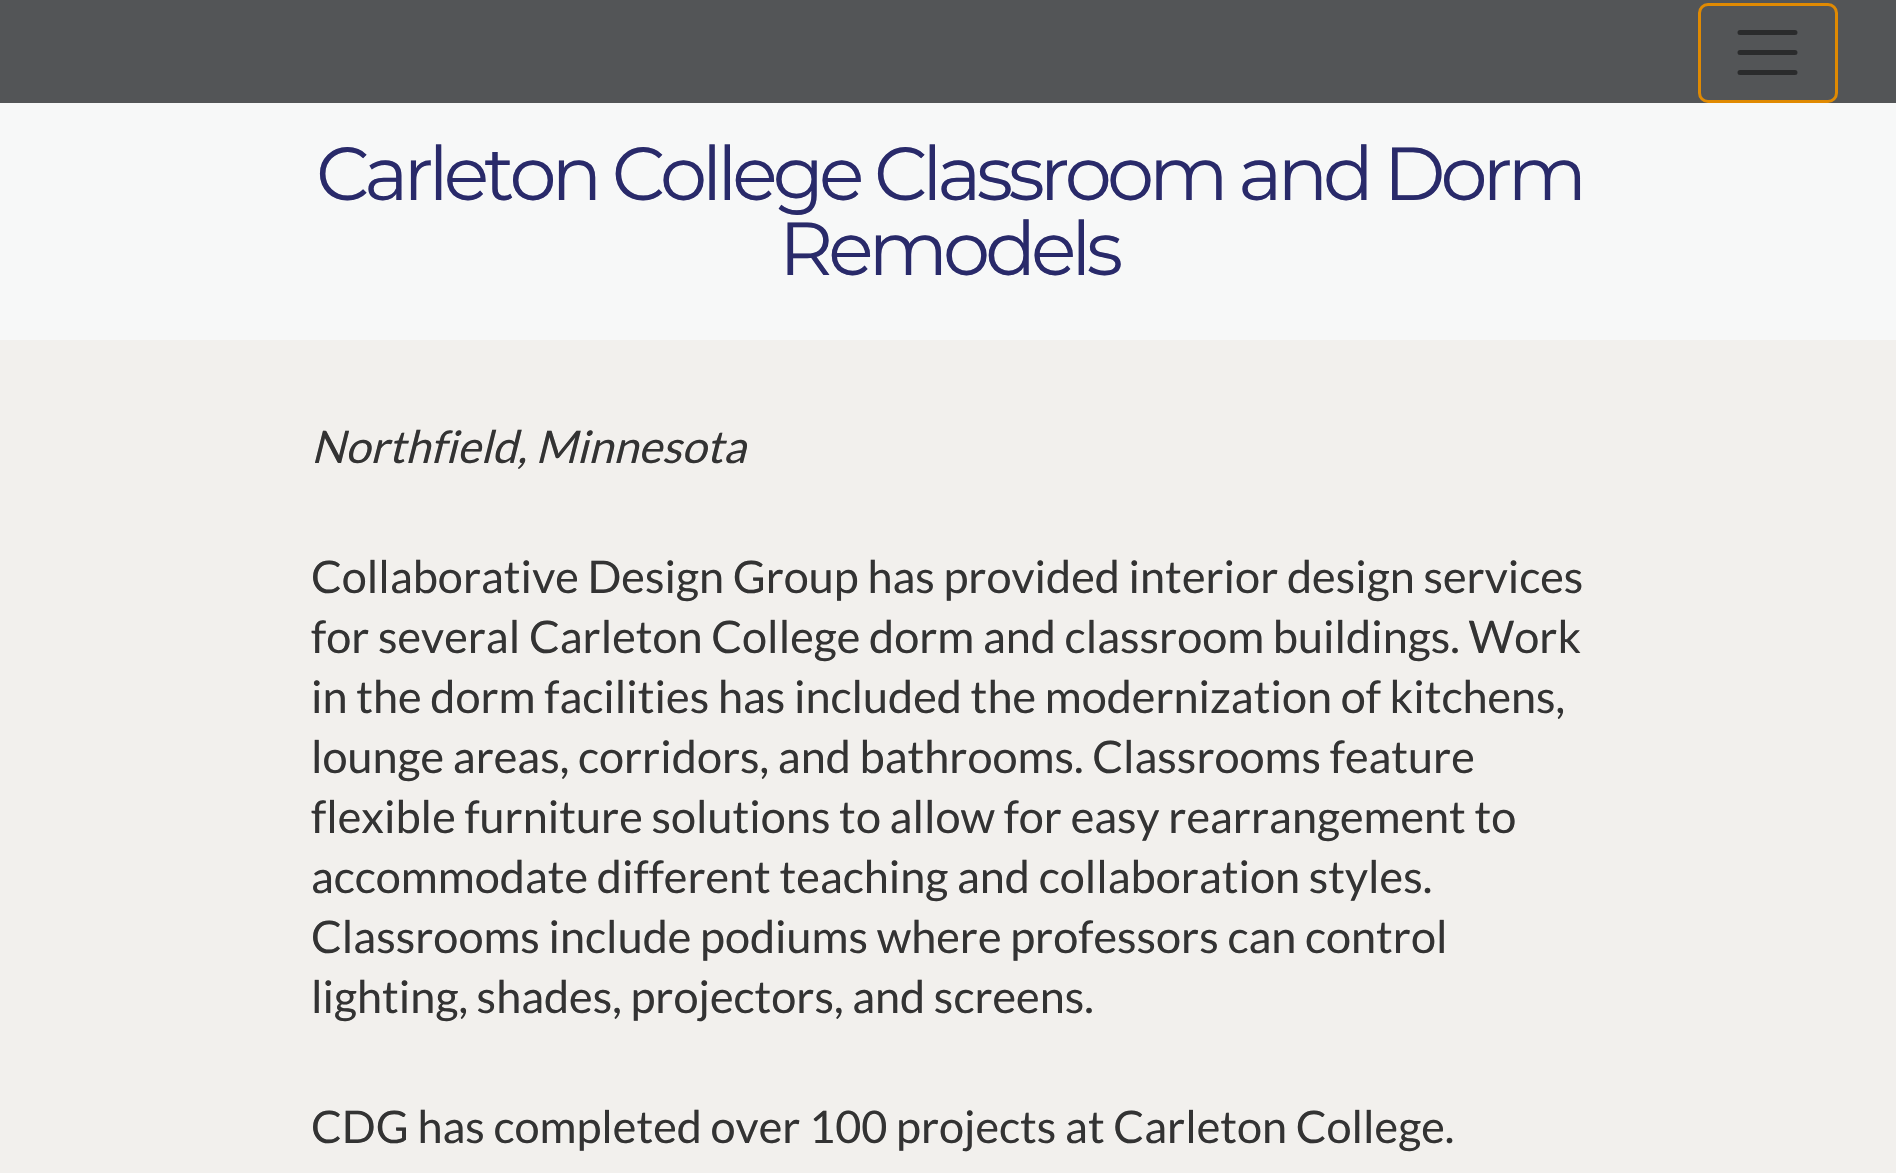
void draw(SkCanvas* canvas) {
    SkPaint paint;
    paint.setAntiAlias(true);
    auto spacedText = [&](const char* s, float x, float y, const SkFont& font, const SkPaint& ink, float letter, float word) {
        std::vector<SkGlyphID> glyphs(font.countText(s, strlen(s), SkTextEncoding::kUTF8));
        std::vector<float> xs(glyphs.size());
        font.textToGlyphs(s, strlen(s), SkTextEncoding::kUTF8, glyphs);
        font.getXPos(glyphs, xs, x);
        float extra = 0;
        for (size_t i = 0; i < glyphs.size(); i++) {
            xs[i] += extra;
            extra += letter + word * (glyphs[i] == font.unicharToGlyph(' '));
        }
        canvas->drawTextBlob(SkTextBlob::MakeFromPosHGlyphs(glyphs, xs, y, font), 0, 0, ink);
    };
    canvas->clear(0xFFF2F0ED);
    paint.setColor(0xFF535557);
    canvas->drawRect(SkRect::MakeXYWH(0, 0, 1896, 103), paint);
    paint.setStyle(SkPaint::kStroke_Style);
    paint.setStrokeWidth(3);
    paint.setColor(0xFFE08A02);
    canvas->drawRoundRect(SkRect::MakeXYWH(1699.5f, 4.5f, 137, 97), 8.5f, 8.5f, paint);
    paint.setStrokeWidth(5);
    paint.setStrokeCap(SkPaint::kRound_Cap);
    paint.setColor(0xFF2A2B2C);
    canvas->drawPath(SkPathBuilder().moveTo(1740, 32.5f).lineTo(1795, 32.5f).moveTo(1740, 52.5f).lineTo(1795, 52.5f).moveTo(1740, 72.5f).lineTo(1795, 72.5f).detach(), paint);
    paint.setStyle(SkPaint::kFill_Style);
    paint.setColor(0xFFF7F8F8);
    canvas->drawRect(SkRect::MakeXYWH(0, 103, 1896, 237), paint);
    SkFont font1(fontMgr->matchFamilyStyle("Montserrat", SkFontStyle(100, SkFontStyle::kNormal_Width, SkFontStyle::kUpright_Slant)), 75);
    font1.setSubpixel(true);
    paint.setColor(0xFF292A6A);
    spacedText("Carleton College Classroom and Dorm", 316, 200, font1, paint, -5, 0);
    spacedText("Remodels", 779, 275, font1, paint, -5, 0);
    SkFont font2(fontMgr->matchFamilyStyle("Lato", SkFontStyle::Italic()), 45);
    font2.setSubpixel(true);
    paint.setColor(0xFF333333);
    canvas->drawString("Northfield, Minnesota", 311, 463, font2, paint);
    SkFont font3(fontMgr->matchFamilyStyle("Lato", SkFontStyle::Normal()), 45);
    font3.setSubpixel(true);
    canvas->drawString("Collaborative Design Group has provided interior design services", 311, 593, font3, paint);
    canvas->drawString("for several Carleton College dorm and classroom buildings. Work", 311, 653, font3, paint);
    canvas->drawString("in the dorm facilities has included the modernization of kitchens,", 311, 713, font3, paint);
    canvas->drawString("lounge areas, corridors, and bathrooms. Classrooms feature", 311, 773, font3, paint);
    canvas->drawString("flexible furniture solutions to allow for easy rearrangement to", 311, 833, font3, paint);
    canvas->drawString("accommodate different teaching and collaboration styles.", 311, 893, font3, paint);
    canvas->drawString("Classrooms include podiums where professors can control", 311, 953, font3, paint);
    canvas->drawString("lighting, shades, projectors, and screens.", 311, 1013, font3, paint);
    canvas->drawString("CDG has completed over 100 projects at Carleton College.", 311, 1143, font3, paint);
}
